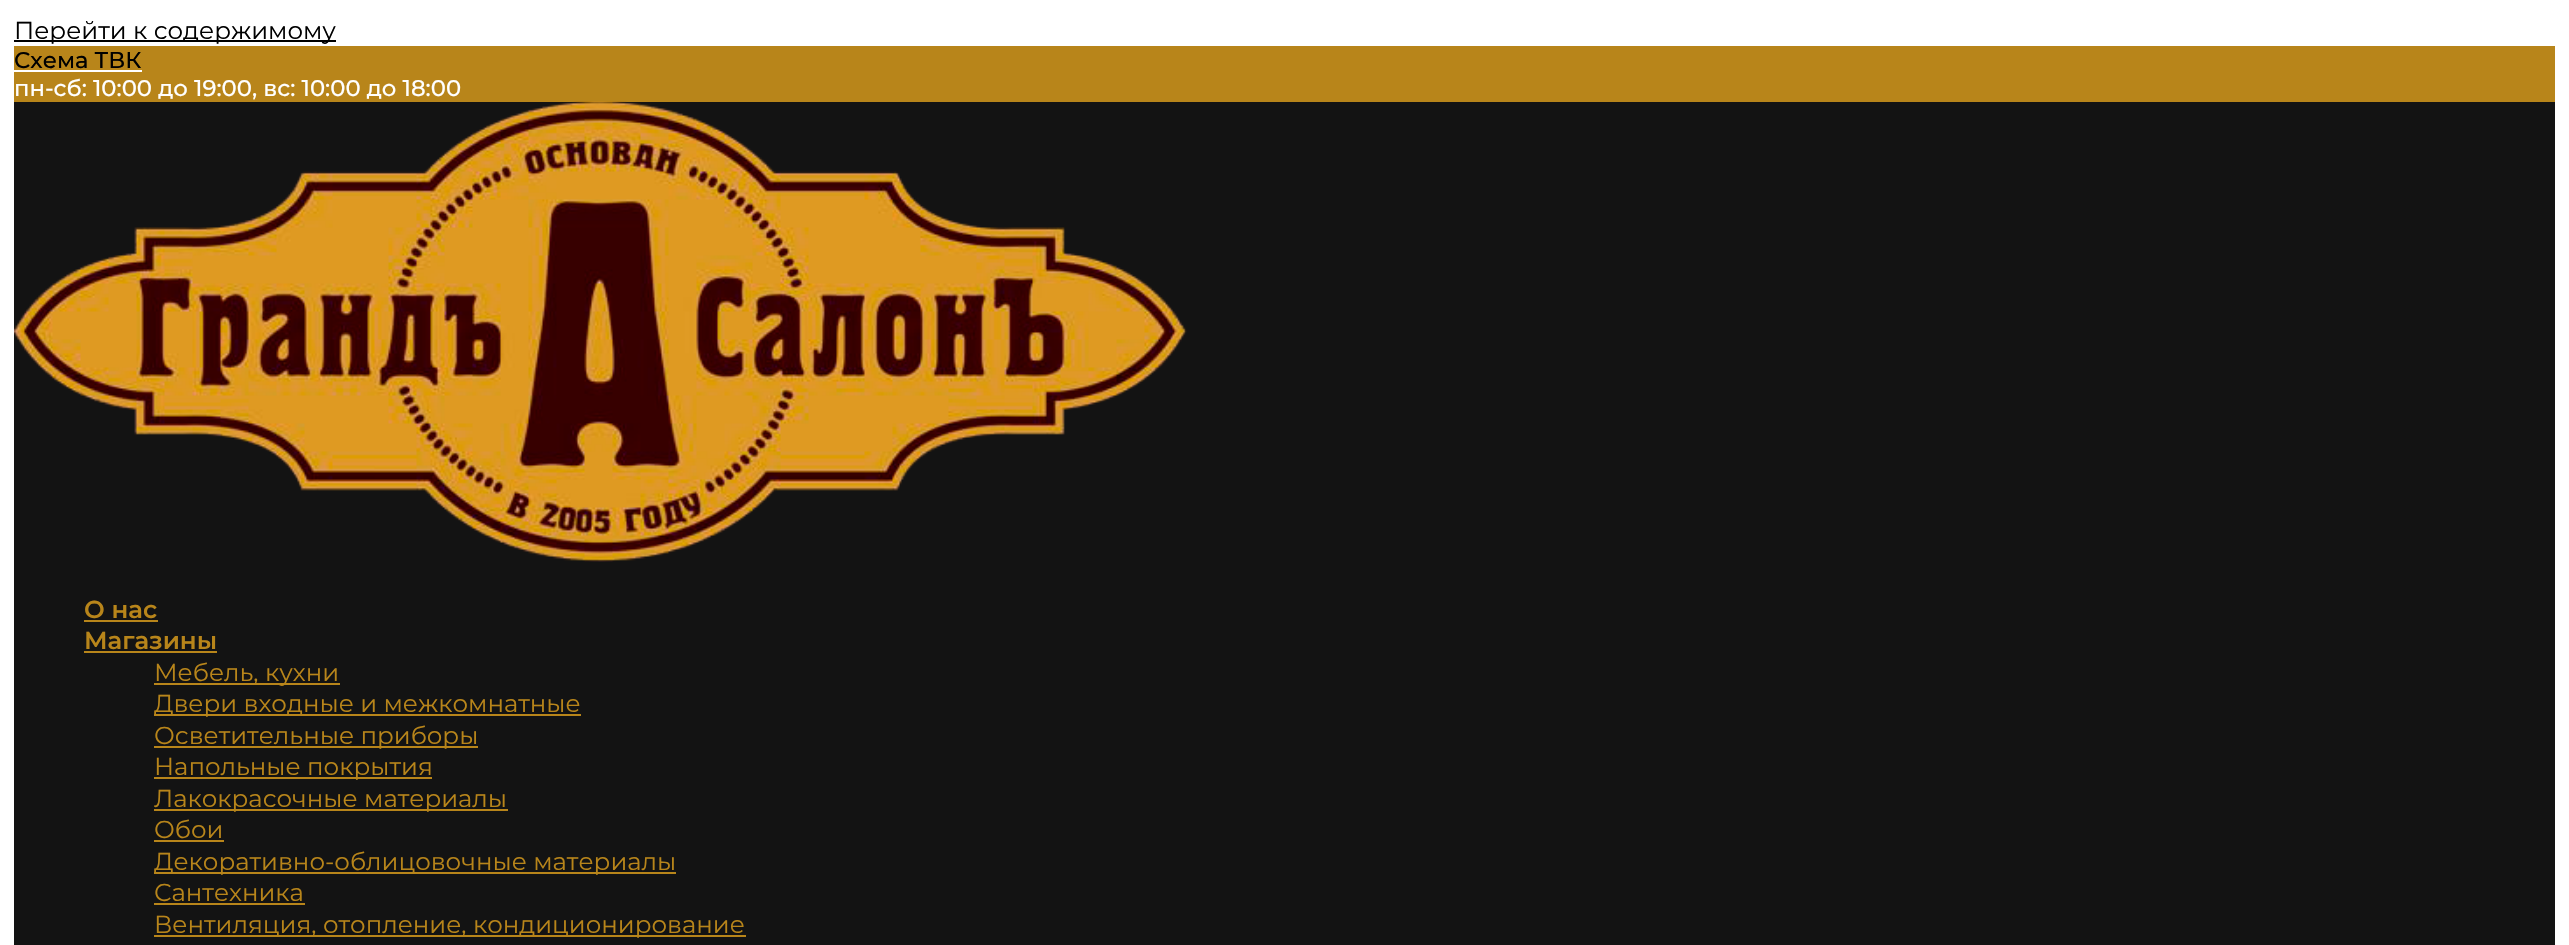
void draw(SkCanvas* canvas) {
    SkPaint paint;
    paint.setAntiAlias(true);
    canvas->clear(0xFFFFFFFF);
    paint.setColor(0xFF000000);
    canvas->drawRect(SkRect::MakeXYWH(14, 40, 322, 2), paint);
    SkFont font1(fontMgr->matchFamilyStyle("Montserrat", SkFontStyle::Normal()), 24.5f);
    font1.setSubpixel(true);
    canvas->drawString("Перейти к содержимому", 14, 39, font1, paint);
    paint.setColor(0xFFB8851A);
    canvas->drawRect(SkRect::MakeXYWH(14, 46, 2541, 56), paint);
    SkFont font2(fontMgr->matchFamilyStyle("Montserrat", SkFontStyle(500, SkFontStyle::kNormal_Width, SkFontStyle::kUpright_Slant)), 22.75f);
    font2.setSubpixel(true);
    paint.setColor(0xFF000000);
    canvas->drawString("Схема ТВК", 14, 68, font2, paint);
    paint.setColor(0xFFFFFFFF);
    canvas->drawRect(SkRect::MakeXYWH(14, 70, 128, 2), paint);
    canvas->drawString("пн-сб: 10:00 до 19:00, вс: 10:00 до 18:00", 14, 96, font2, paint);
    paint.setColor(0xFF131313);
    canvas->drawRect(SkRect::MakeXYWH(14, 102, 2541, 843), paint);
    canvas->drawImageRect(SkImages::DeferredFromEncodedData(SkData::MakeFromFileName("img1.png")), SkRect::MakeXYWH(14, 101, 1173, 461), SkSamplingOptions());
    SkFont font3(fontMgr->matchFamilyStyle("Montserrat", SkFontStyle(600, SkFontStyle::kNormal_Width, SkFontStyle::kUpright_Slant)), 24.5f);
    font3.setSubpixel(true);
    paint.setColor(0xFFB8851A);
    canvas->drawString("О нас", 84, 618, font3, paint);
    canvas->drawRect(SkRect::MakeXYWH(84, 620, 74, 2), paint);
    canvas->drawString("Магазины", 84, 649, font3, paint);
    canvas->drawRect(SkRect::MakeXYWH(84, 651, 133, 2), paint);
    canvas->drawRect(SkRect::MakeXYWH(154, 683, 186, 2), paint);
    canvas->drawString("Мебель, кухни", 154, 681, font1, paint);
    canvas->drawRect(SkRect::MakeXYWH(154, 714, 427, 2), paint);
    canvas->drawString("Двери входные и межкомнатные", 154, 712, font1, paint);
    canvas->drawRect(SkRect::MakeXYWH(154, 746, 324, 2), paint);
    canvas->drawString("Осветительные приборы", 154, 744, font1, paint);
    canvas->drawRect(SkRect::MakeXYWH(154, 777, 278, 2), paint);
    canvas->drawString("Напольные покрытия", 154, 775, font1, paint);
    canvas->drawRect(SkRect::MakeXYWH(154, 809, 354, 2), paint);
    canvas->drawString("Лакокрасочные материалы", 154, 807, font1, paint);
    canvas->drawString("Обои", 154, 838, font1, paint);
    canvas->drawRect(SkRect::MakeXYWH(154, 840, 70, 2), paint);
    canvas->drawRect(SkRect::MakeXYWH(154, 872, 522, 2), paint);
    canvas->drawString("Декоративно-облицовочные материалы", 154, 870, font1, paint);
    canvas->drawString("Сантехника", 154, 901, font1, paint);
    canvas->drawRect(SkRect::MakeXYWH(154, 903, 151, 2), paint);
    canvas->drawRect(SkRect::MakeXYWH(154, 935, 592, 2), paint);
    canvas->drawString("Вентиляция, отопление, кондиционирование", 154, 933, font1, paint);
}
